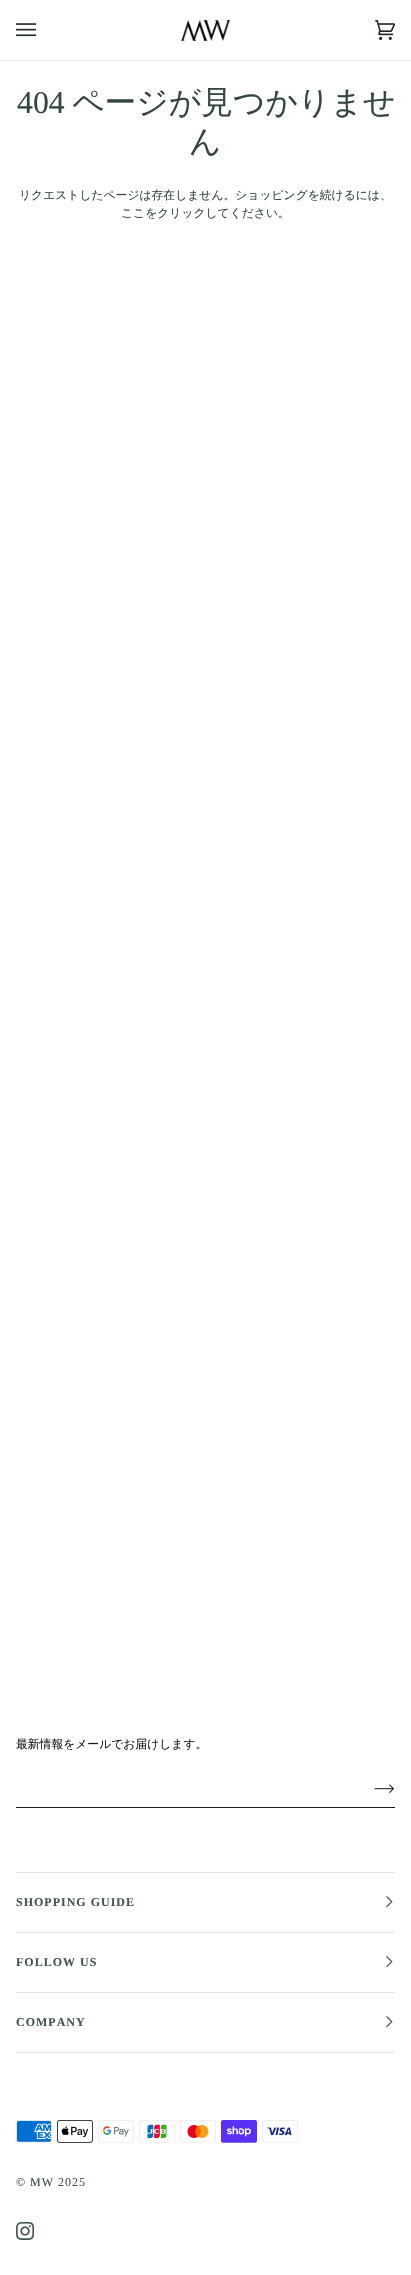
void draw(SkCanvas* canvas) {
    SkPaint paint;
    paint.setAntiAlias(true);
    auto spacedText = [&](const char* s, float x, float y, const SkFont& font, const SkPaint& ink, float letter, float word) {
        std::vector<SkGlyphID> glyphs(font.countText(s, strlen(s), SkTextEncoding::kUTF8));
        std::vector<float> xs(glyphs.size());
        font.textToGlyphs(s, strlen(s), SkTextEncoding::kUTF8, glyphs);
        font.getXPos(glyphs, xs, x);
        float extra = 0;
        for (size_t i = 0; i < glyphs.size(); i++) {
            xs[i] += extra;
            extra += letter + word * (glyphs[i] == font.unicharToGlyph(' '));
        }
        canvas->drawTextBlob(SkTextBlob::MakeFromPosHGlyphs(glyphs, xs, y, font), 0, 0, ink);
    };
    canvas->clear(0xFFFFFFFF);
    paint.setColor(0xFFF8F0E7);
    canvas->drawRect(SkRect::MakeXYWH(0, 60, 411, 1), paint);
    canvas->drawImageRect(SkImages::DeferredFromEncodedData(SkData::MakeFromFileName("img1.png")), SkRect::MakeXYWH(16, 23, 20, 14), SkSamplingOptions());
    canvas->drawImageRect(SkImages::DeferredFromEncodedData(SkData::MakeFromFileName("img2.png")), SkRect::MakeXYWH(181, 20, 49, 21), SkSamplingOptions());
    canvas->drawImageRect(SkImages::DeferredFromEncodedData(SkData::MakeFromFileName("img3.png")), SkRect::MakeXYWH(375, 20, 20, 20), SkSamplingOptions());
    SkFont font1(fontMgr->matchFamilyStyle("Liberation Serif", SkFontStyle::Normal()), 31.75f);
    font1.setSubpixel(true);
    paint.setColor(0xFF334641);
    canvas->drawString("404", 17, 113, font1, paint);
    SkFont font2(fontMgr->matchFamilyStyle("WenQuanYi Zen Hei", SkFontStyle(500, SkFontStyle::kNormal_Width, SkFontStyle::kUpright_Slant)), 31.75f);
    font2.setSubpixel(true);
    canvas->drawString("ページが見つかりませ", 72, 113, font2, paint);
    canvas->drawString("ん", 189, 152, font2, paint);
    SkFont font3(fontMgr->matchFamilyStyle("WenQuanYi Zen Hei", SkFontStyle(500, SkFontStyle::kNormal_Width, SkFontStyle::kUpright_Slant)), 11.8f);
    font3.setSubpixel(true);
    canvas->drawString("リクエストしたページは存在しません。ショッピングを続けるには、", 19, 199, font3, paint);
    canvas->drawString("ここをクリックしてください。", 121, 217, font3, paint);
    paint.setColor(0xFF1A1A1A);
    canvas->drawString("最新情報をメールでお届けします。", 16, 1748, font3, paint);
    canvas->drawRect(SkRect::MakeXYWH(16, 1807, 379, 1), paint);
    canvas->drawImageRect(SkImages::DeferredFromEncodedData(SkData::MakeFromFileName("img4.png")), SkRect::MakeXYWH(374, 1784, 21, 9), SkSamplingOptions());
    paint.setColor(0xFFE0E3E2);
    canvas->drawRect(SkRect::MakeXYWH(16, 1872, 379, 1), paint);
    canvas->drawRect(SkRect::MakeXYWH(16, 1932, 379, 1), paint);
    SkFont font4(fontMgr->matchFamilyStyle("Liberation Serif", SkFontStyle::Bold()), 12);
    font4.setSubpixel(true);
    paint.setColor(0xFF435450);
    spacedText("SHOPPING GUIDE", 16, 1906, font4, paint, 1, 0);
    canvas->drawImageRect(SkImages::DeferredFromEncodedData(SkData::MakeFromFileName("img5.png")), SkRect::MakeXYWH(386, 1896, 7, 12), SkSamplingOptions());
    paint.setColor(0xFFE0E3E2);
    canvas->drawRect(SkRect::MakeXYWH(16, 1992, 379, 1), paint);
    paint.setColor(0xFF435450);
    spacedText("FOLLOW US", 16, 1966, font4, paint, 1, 0);
    canvas->drawImageRect(SkImages::DeferredFromEncodedData(SkData::MakeFromFileName("img5.png")), SkRect::MakeXYWH(386, 1956, 7, 12), SkSamplingOptions());
    paint.setColor(0xFFE0E3E2);
    canvas->drawRect(SkRect::MakeXYWH(16, 2052, 379, 1), paint);
    paint.setColor(0xFF435450);
    spacedText("COMPANY", 16, 2026, font4, paint, 1, 0);
    canvas->drawImageRect(SkImages::DeferredFromEncodedData(SkData::MakeFromFileName("img5.png")), SkRect::MakeXYWH(386, 2016, 7, 12), SkSamplingOptions());
    canvas->drawImageRect(SkImages::DeferredFromEncodedData(SkData::MakeFromFileName("img6.png")), SkRect::MakeXYWH(16, 2120, 36, 23), SkSamplingOptions());
    canvas->drawImageRect(SkImages::DeferredFromEncodedData(SkData::MakeFromFileName("img7.png")), SkRect::MakeXYWH(57, 2120, 36, 23), SkSamplingOptions());
    canvas->drawImageRect(SkImages::DeferredFromEncodedData(SkData::MakeFromFileName("img8.png")), SkRect::MakeXYWH(98, 2120, 36, 23), SkSamplingOptions());
    canvas->drawImageRect(SkImages::DeferredFromEncodedData(SkData::MakeFromFileName("img9.png")), SkRect::MakeXYWH(139, 2120, 36, 23), SkSamplingOptions());
    canvas->drawImageRect(SkImages::DeferredFromEncodedData(SkData::MakeFromFileName("img10.png")), SkRect::MakeXYWH(180, 2120, 36, 23), SkSamplingOptions());
    canvas->drawImageRect(SkImages::DeferredFromEncodedData(SkData::MakeFromFileName("img11.png")), SkRect::MakeXYWH(221, 2120, 36, 23), SkSamplingOptions());
    canvas->drawImageRect(SkImages::DeferredFromEncodedData(SkData::MakeFromFileName("img12.png")), SkRect::MakeXYWH(262, 2120, 36, 23), SkSamplingOptions());
    SkFont font5(fontMgr->matchFamilyStyle("Liberation Serif", SkFontStyle::Normal()), 12);
    font5.setSubpixel(true);
    spacedText("©", 16, 2186, font5, paint, 1, 0);
    paint.setColor(0xFF334641);
    spacedText("MW", 30, 2186, font5, paint, 1, 0);
    paint.setColor(0xFF435450);
    spacedText("2025", 58, 2186, font5, paint, 1, 0);
    canvas->drawImageRect(SkImages::DeferredFromEncodedData(SkData::MakeFromFileName("img13.png")), SkRect::MakeXYWH(16, 2222, 18, 18), SkSamplingOptions());
}
